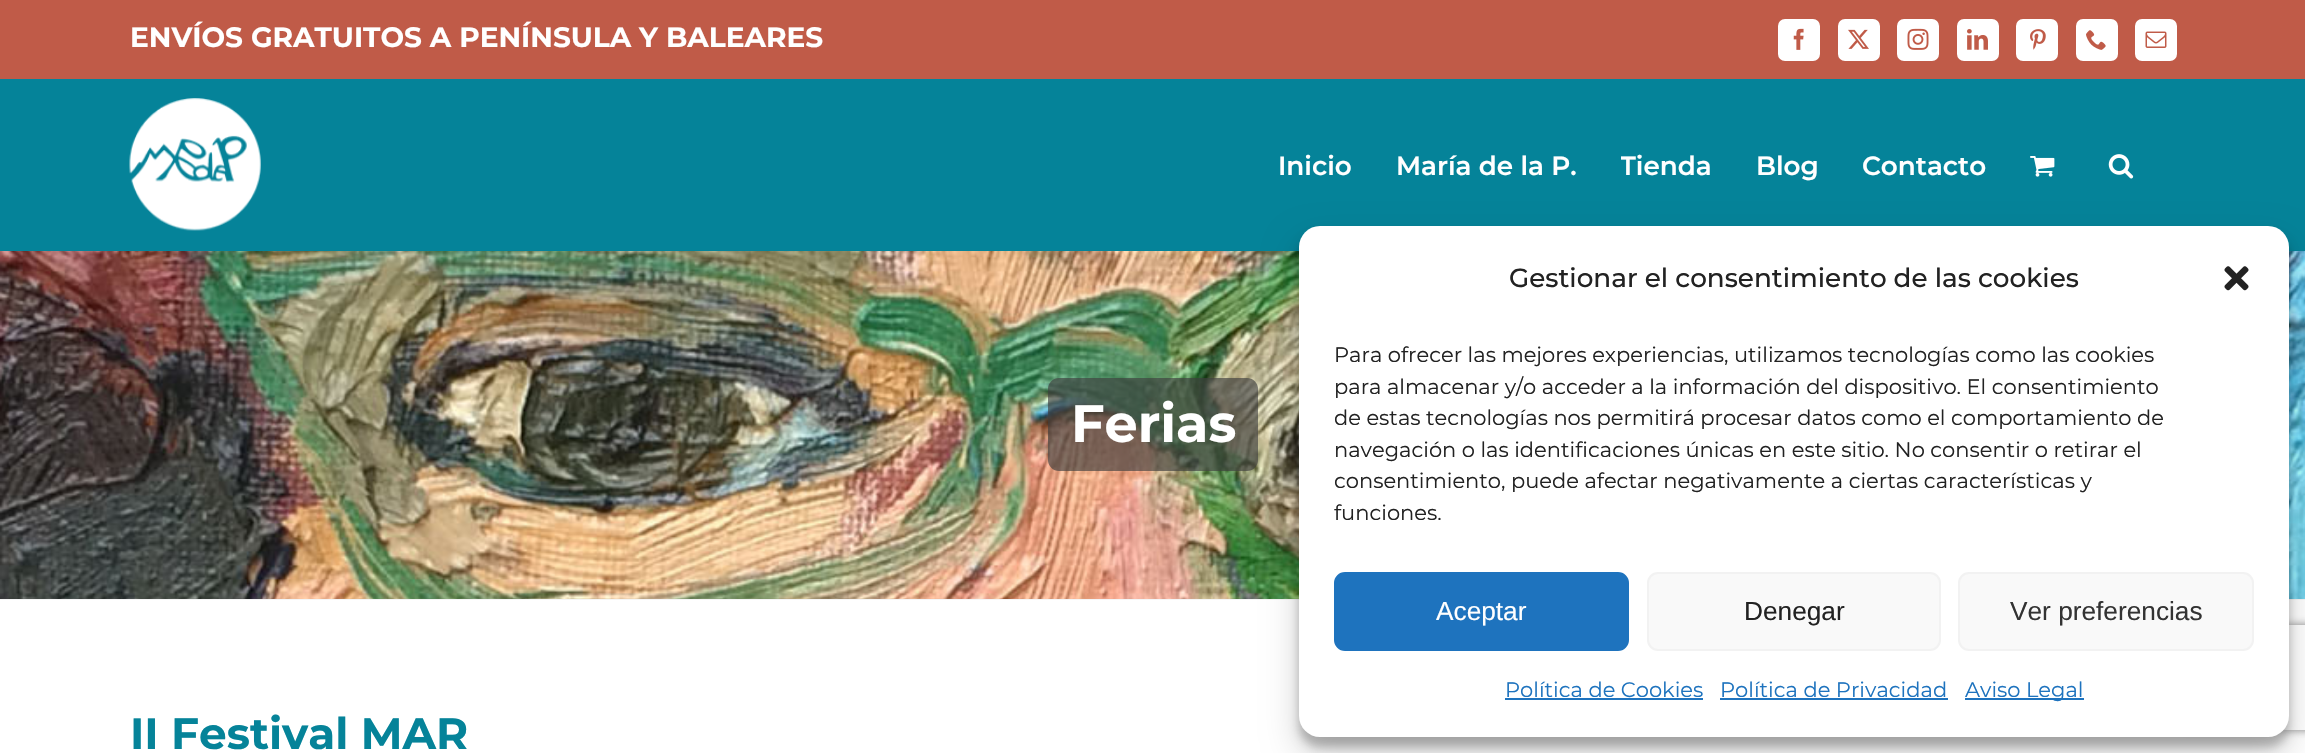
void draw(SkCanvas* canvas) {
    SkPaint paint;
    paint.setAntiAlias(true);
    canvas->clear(0xFFFFFFFF);
    paint.setColor(0xFFC05B48);
    canvas->drawRect(SkRect::MakeXYWH(0, 0, 2305, 79), paint);
    paint.setColor(0xFF058399);
    canvas->drawRect(SkRect::MakeXYWH(0, 79, 2305, 172), paint);
    SkFont font1(fontMgr->matchFamilyStyle("Montserrat", SkFontStyle::Bold()), 28);
    font1.setSubpixel(true);
    paint.setColor(0xFFFFFFFF);
    canvas->drawString("ENVÍOS GRATUITOS A PENÍNSULA Y BALEARES", 130, 47, font1, paint);
    canvas->drawRoundRect(SkRect::MakeXYWH(1779, 20, 40, 40), 6, 6, paint);
    paint.setStyle(SkPaint::kStroke_Style);
    paint.setStrokeWidth(2);
    canvas->drawRoundRect(SkRect::MakeXYWH(1779, 20, 40, 40), 6, 6, paint);
    canvas->drawImageRect(SkImages::DeferredFromEncodedData(SkData::MakeFromFileName("img1.png")), SkRect::MakeXYWH(1793, 28, 11, 22), SkSamplingOptions());
    paint.setStyle(SkPaint::kFill_Style);
    canvas->drawRoundRect(SkRect::MakeXYWH(1839, 20, 40, 40), 6, 6, paint);
    paint.setStyle(SkPaint::kStroke_Style);
    canvas->drawRoundRect(SkRect::MakeXYWH(1839, 20, 40, 40), 6, 6, paint);
    canvas->drawImageRect(SkImages::DeferredFromEncodedData(SkData::MakeFromFileName("img2.png")), SkRect::MakeXYWH(1848, 29, 21, 20), SkSamplingOptions());
    paint.setStyle(SkPaint::kFill_Style);
    canvas->drawRoundRect(SkRect::MakeXYWH(1898, 20, 40, 40), 6, 6, paint);
    paint.setStyle(SkPaint::kStroke_Style);
    canvas->drawRoundRect(SkRect::MakeXYWH(1898, 20, 40, 40), 6, 6, paint);
    canvas->drawImageRect(SkImages::DeferredFromEncodedData(SkData::MakeFromFileName("img3.png")), SkRect::MakeXYWH(1907, 28, 22, 22), SkSamplingOptions());
    paint.setStyle(SkPaint::kFill_Style);
    canvas->drawRoundRect(SkRect::MakeXYWH(1958, 20, 40, 40), 6, 6, paint);
    paint.setStyle(SkPaint::kStroke_Style);
    canvas->drawRoundRect(SkRect::MakeXYWH(1958, 20, 40, 40), 6, 6, paint);
    canvas->drawImageRect(SkImages::DeferredFromEncodedData(SkData::MakeFromFileName("img4.png")), SkRect::MakeXYWH(1967, 29, 21, 21), SkSamplingOptions());
    paint.setStyle(SkPaint::kFill_Style);
    canvas->drawRoundRect(SkRect::MakeXYWH(2017, 20, 40, 40), 6, 6, paint);
    paint.setStyle(SkPaint::kStroke_Style);
    canvas->drawRoundRect(SkRect::MakeXYWH(2017, 20, 40, 40), 6, 6, paint);
    canvas->drawImageRect(SkImages::DeferredFromEncodedData(SkData::MakeFromFileName("img5.png")), SkRect::MakeXYWH(2030, 29, 16, 21), SkSamplingOptions());
    paint.setStyle(SkPaint::kFill_Style);
    canvas->drawRoundRect(SkRect::MakeXYWH(2077, 20, 40, 40), 6, 6, paint);
    paint.setStyle(SkPaint::kStroke_Style);
    canvas->drawRoundRect(SkRect::MakeXYWH(2077, 20, 40, 40), 6, 6, paint);
    canvas->drawImageRect(SkImages::DeferredFromEncodedData(SkData::MakeFromFileName("img6.png")), SkRect::MakeXYWH(2086, 30, 20, 20), SkSamplingOptions());
    paint.setStyle(SkPaint::kFill_Style);
    canvas->drawRoundRect(SkRect::MakeXYWH(2136, 20, 40, 40), 6, 6, paint);
    paint.setStyle(SkPaint::kStroke_Style);
    canvas->drawRoundRect(SkRect::MakeXYWH(2136, 20, 40, 40), 6, 6, paint);
    canvas->drawImageRect(SkImages::DeferredFromEncodedData(SkData::MakeFromFileName("img7.png")), SkRect::MakeXYWH(2145, 31, 22, 17), SkSamplingOptions());
    canvas->drawImageRect(SkImages::DeferredFromEncodedData(SkData::MakeFromFileName("img8.png")), SkRect::MakeXYWH(129, 98, 132, 133), SkSamplingOptions());
    SkFont font2(fontMgr->matchFamilyStyle("Montserrat", SkFontStyle(600, SkFontStyle::kNormal_Width, SkFontStyle::kUpright_Slant)), 26.25f);
    font2.setSubpixel(true);
    paint.setStyle(SkPaint::kFill_Style);
    canvas->drawString("Inicio", 1278, 175, font2, paint);
    canvas->drawString("María de la P.", 1396, 175, font2, paint);
    canvas->save();
    canvas->clipRect(SkRect::MakeXYWH(1621, 81, 134, 166));
    canvas->drawString("Tienda", 1620, 175, font2, paint);
    canvas->restore();
    canvas->drawString("Blog", 1756, 175, font2, paint);
    canvas->drawString("Contacto", 1862, 175, font2, paint);
    canvas->drawImageRect(SkImages::DeferredFromEncodedData(SkData::MakeFromFileName("img9.png")), SkRect::MakeXYWH(2030, 156, 25, 21), SkSamplingOptions());
    canvas->drawImageRect(SkImages::DeferredFromEncodedData(SkData::MakeFromFileName("img10.png")), SkRect::MakeXYWH(2108, 154, 26, 25), SkSamplingOptions());
    canvas->drawImageRect(SkImages::DeferredFromEncodedData(SkData::MakeFromFileName("img11.png")), SkRect::MakeXYWH(0, 251, 2305, 348), SkSamplingOptions());
    paint.setColor(0xFFF5F5F5);
    canvas->drawRect(SkRect::MakeXYWH(0, 599, 2305, 1), paint);
    paint.setColor(0xA63E3E3E);
    canvas->drawRoundRect(SkRect::MakeXYWH(1048, 378, 210, 93), 11, 11, paint);
    SkFont font3(fontMgr->matchFamilyStyle("Montserrat", SkFontStyle::Bold()), 52.5f);
    font3.setSubpixel(true);
    paint.setColor(0xFFFFFFFF);
    canvas->drawString("Ferias", 1071, 442, font3, paint);
    SkFont font4(fontMgr->matchFamilyStyle("Montserrat", SkFontStyle::Bold()), 43.75f);
    font4.setSubpixel(true);
    paint.setColor(0xFF058399);
    canvas->drawString("II Festival MAR", 130, 749, font4, paint);
    paint.setColor(0x3B000000);
    paint.setMaskFilter(SkMaskFilter::MakeBlur(kNormal_SkBlurStyle, 5));
    canvas->drawRoundRect(SkRect::MakeXYWH(1299, 236, 990, 511), 21, 21, paint);
    paint.setMaskFilter(nullptr);
    paint.setColor(0x30000000);
    paint.setMaskFilter(SkMaskFilter::MakeBlur(kNormal_SkBlurStyle, 17.5f));
    canvas->drawRoundRect(SkRect::MakeXYWH(1299, 243, 990, 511), 21, 21, paint);
    paint.setMaskFilter(nullptr);
    canvas->save();
    canvas->clipPath(SkPathBuilder(SkPathFillType::kEvenOdd).moveTo(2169, 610).lineTo(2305, 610).lineTo(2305, 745).lineTo(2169, 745).close().moveTo(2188, 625).lineTo(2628, 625).cubicTo(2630, 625, 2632, 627, 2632, 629).lineTo(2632, 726).cubicTo(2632, 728, 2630, 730, 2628, 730).lineTo(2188, 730).cubicTo(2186, 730, 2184, 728, 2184, 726).lineTo(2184, 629).cubicTo(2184, 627, 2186, 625, 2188, 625).close().detach(), true);
    paint.setColor(0xFF808080);
    paint.setMaskFilter(SkMaskFilter::MakeBlur(kNormal_SkBlurStyle, 4.5f));
    canvas->drawRoundRect(SkRect::MakeXYWH(2184, 625, 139, 105), 4, 4, paint);
    paint.setMaskFilter(nullptr);
    canvas->restore();
    paint.setColor(0xFFFFFFFF);
    canvas->drawRoundRect(SkRect::MakeXYWH(1299, 226, 990, 511), 21, 21, paint);
    SkFont font5(fontMgr->matchFamilyStyle("Montserrat", SkFontStyle(500, SkFontStyle::kNormal_Width, SkFontStyle::kUpright_Slant)), 26.25f);
    font5.setSubpixel(true);
    paint.setColor(0xFF222222);
    canvas->drawString("Gestionar el consentimiento de las cookies", 1509, 287, font5, paint);
    canvas->drawImageRect(SkImages::DeferredFromEncodedData(SkData::MakeFromFileName("img12.png")), SkRect::MakeXYWH(2224, 266, 25, 25), SkSamplingOptions());
    SkFont font6(fontMgr->matchFamilyStyle("Montserrat", SkFontStyle::Normal()), 21);
    font6.setSubpixel(true);
    canvas->drawString("Para ofrecer las mejores experiencias, utilizamos tecnologías como las cookies", 1334, 362, font6, paint);
    canvas->drawString("para almacenar y/o acceder a la información del dispositivo. El consentimiento", 1334, 394, font6, paint);
    canvas->drawString("de estas tecnologías nos permitirá procesar datos como el comportamiento de", 1334, 425, font6, paint);
    canvas->drawString("navegación o las identificaciones únicas en este sitio. No consentir o retirar el", 1334, 457, font6, paint);
    canvas->drawString("consentimiento, puede afectar negativamente a ciertas características y", 1334, 488, font6, paint);
    canvas->drawString("funciones.", 1334, 520, font6, paint);
    paint.setColor(0xFF1E73BE);
    canvas->drawRoundRect(SkRect::MakeXYWH(1335, 573, 293, 77), 10, 10, paint);
    paint.setStyle(SkPaint::kStroke_Style);
    canvas->drawRoundRect(SkRect::MakeXYWH(1335, 573, 293, 77), 10, 10, paint);
    SkFont font7(fontMgr->matchFamilyStyle("Liberation Sans", SkFontStyle::Normal()), 26.25f);
    font7.setSubpixel(true);
    paint.setStyle(SkPaint::kFill_Style);
    paint.setColor(0xFFFFFFFF);
    canvas->drawString("Aceptar", 1436, 620, font7, paint);
    paint.setColor(0xFFF9F9F9);
    canvas->drawRoundRect(SkRect::MakeXYWH(1648, 573, 292, 77), 10, 10, paint);
    paint.setStyle(SkPaint::kStroke_Style);
    paint.setColor(0xFFF2F2F2);
    canvas->drawRoundRect(SkRect::MakeXYWH(1648, 573, 292, 77), 10, 10, paint);
    paint.setStyle(SkPaint::kFill_Style);
    paint.setColor(0xFF222222);
    canvas->drawString("Denegar", 1744, 620, font7, paint);
    paint.setColor(0xFFF9F9F9);
    canvas->drawRoundRect(SkRect::MakeXYWH(1959, 573, 294, 77), 10, 10, paint);
    paint.setStyle(SkPaint::kStroke_Style);
    paint.setColor(0xFFF2F2F2);
    canvas->drawRoundRect(SkRect::MakeXYWH(1959, 573, 294, 77), 10, 10, paint);
    paint.setStyle(SkPaint::kFill_Style);
    paint.setColor(0xFF333333);
    canvas->drawString("Ver preferencias", 2010, 620, font7, paint);
    paint.setColor(0xFF1E73BE);
    canvas->drawString("Política de Cookies", 1505, 697, font6, paint);
    canvas->drawRect(SkRect::MakeXYWH(1505, 698, 198, 2), paint);
    canvas->drawString("Política de Privacidad", 1720, 697, font6, paint);
    canvas->drawRect(SkRect::MakeXYWH(1720, 698, 228, 2), paint);
    canvas->drawRect(SkRect::MakeXYWH(1965, 698, 119, 2), paint);
    canvas->drawString("Aviso Legal", 1965, 697, font6, paint);
}
